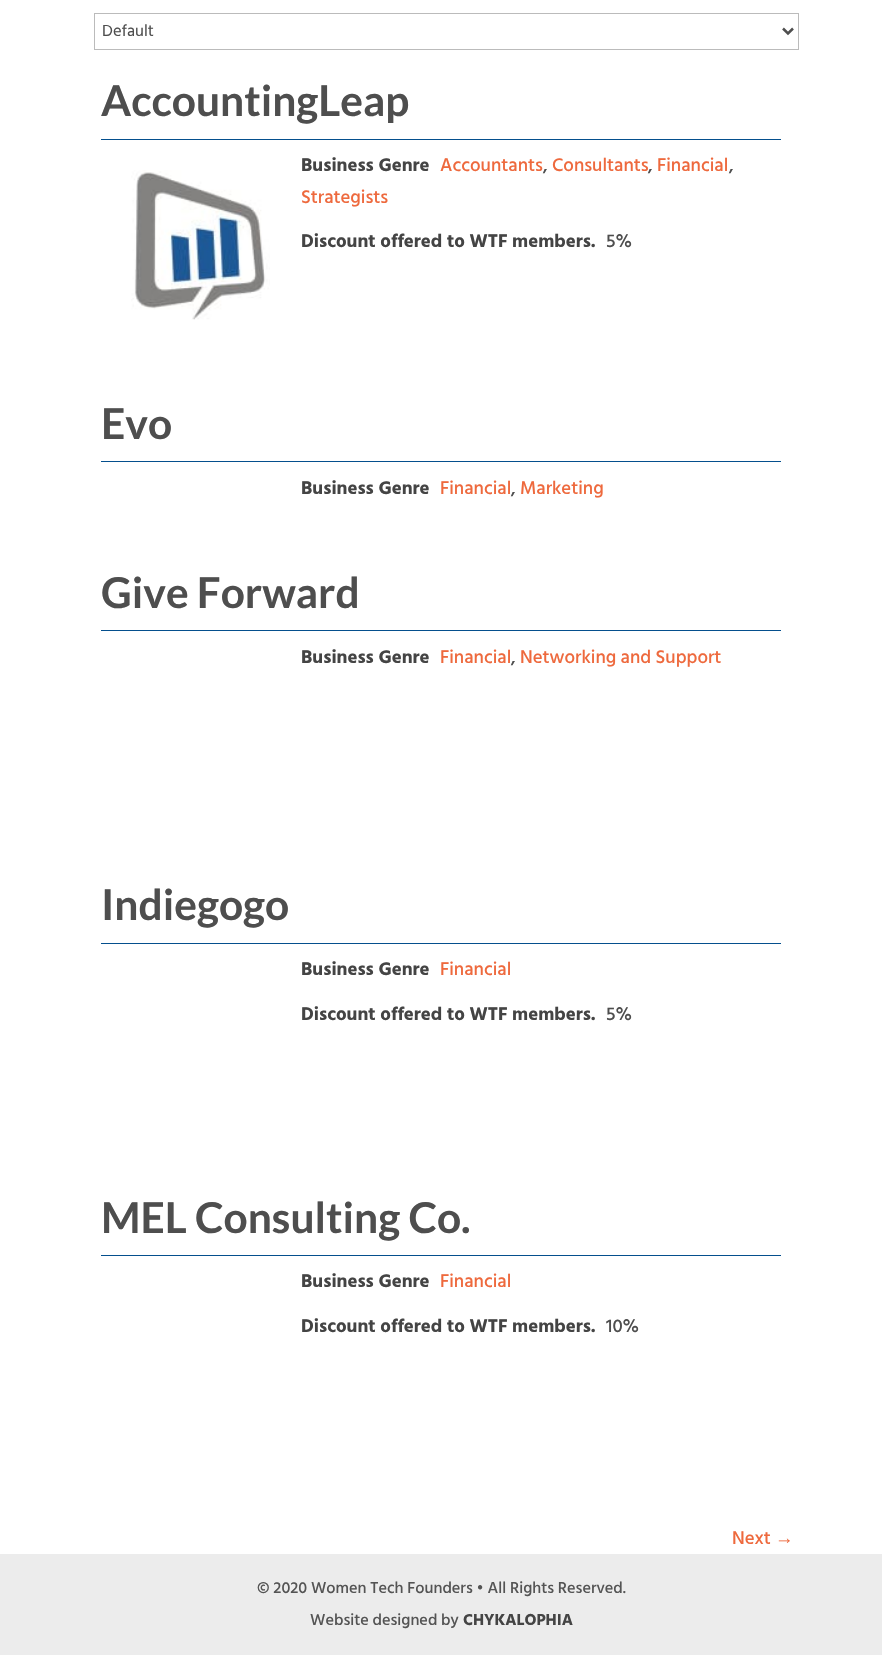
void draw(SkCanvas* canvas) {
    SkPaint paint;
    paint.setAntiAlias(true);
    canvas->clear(0xFFFFFFFF);
    paint.setStyle(SkPaint::kStroke_Style);
    paint.setStrokeWidth(1);
    paint.setColor(0xFFBBBBBB);
    canvas->drawRect(SkRect::MakeXYWH(94.5f, 13.5f, 704, 36), paint);
    paint.setStrokeWidth(2.5f);
    paint.setColor(0xFF4E4E4E);
    canvas->drawPath(SkPathBuilder().moveTo(783, 28.5f).lineTo(788, 33.5f).lineTo(793, 28.5f).detach(), paint);
    SkFont font1(fontMgr->matchFamilyStyle("Hind Siliguri", SkFontStyle::Normal()), 16.5f);
    font1.setSubpixel(true);
    paint.setStyle(SkPaint::kFill_Style);
    canvas->drawString("Default", 102, 36, font1, paint);
    paint.setColor(0xFF044F8D);
    canvas->drawRect(SkRect::MakeXYWH(101, 139, 680, 1), paint);
    SkFont font2(fontMgr->matchFamilyStyle("Lato", SkFontStyle::Bold()), 42.5f);
    font2.setSubpixel(true);
    paint.setColor(0xFF4E4E4E);
    canvas->drawString("AccountingLeap", 101, 116, font2, paint);
    canvas->drawImageRect(SkImages::DeferredFromEncodedData(SkData::MakeFromFileName("img1.png")), SkRect::MakeXYWH(131, 170, 139, 150), SkSamplingOptions());
    SkFont font3(fontMgr->matchFamilyStyle("Hind Siliguri", SkFontStyle::Bold()), 18.75f);
    font3.setSubpixel(true);
    paint.setColor(0xFF444444);
    canvas->drawString("Business Genre", 301, 171, font3, paint);
    SkFont font4(fontMgr->matchFamilyStyle("Hind Siliguri", SkFontStyle(500, SkFontStyle::kNormal_Width, SkFontStyle::kUpright_Slant)), 18.75f);
    font4.setSubpixel(true);
    paint.setColor(0xFFEE693D);
    canvas->drawString("Accountants", 440, 171, font4, paint);
    paint.setColor(0xFF4E4E4E);
    canvas->drawString(",", 543, 171, font4, paint);
    paint.setColor(0xFFEE693D);
    canvas->drawString("Consultants", 552, 171, font4, paint);
    paint.setColor(0xFF4E4E4E);
    canvas->drawString(",", 648, 171, font4, paint);
    paint.setColor(0xFFEE693D);
    canvas->drawString("Financial", 657, 171, font4, paint);
    paint.setColor(0xFF4E4E4E);
    canvas->drawString(",", 729, 171, font4, paint);
    paint.setColor(0xFFEE693D);
    canvas->drawString("Strategists", 301, 203, font4, paint);
    paint.setColor(0xFF444444);
    canvas->drawString("Discount offered to WTF members.", 301, 247, font3, paint);
    paint.setColor(0xFF4E4E4E);
    canvas->drawString("5%", 606, 247, font4, paint);
    paint.setColor(0xFF044F8D);
    canvas->drawRect(SkRect::MakeXYWH(101, 461, 680, 1), paint);
    paint.setColor(0xFF4E4E4E);
    canvas->drawString("Evo", 101, 439, font2, paint);
    paint.setColor(0xFF444444);
    canvas->drawString("Business Genre", 301, 494, font3, paint);
    paint.setColor(0xFFEE693D);
    canvas->drawString("Financial", 440, 494, font4, paint);
    paint.setColor(0xFF4E4E4E);
    canvas->drawString(",", 511, 494, font4, paint);
    paint.setColor(0xFFEE693D);
    canvas->drawString("Marketing", 520, 494, font4, paint);
    paint.setColor(0xFF044F8D);
    canvas->drawRect(SkRect::MakeXYWH(101, 630, 680, 1), paint);
    paint.setColor(0xFF4E4E4E);
    canvas->drawString("Give Forward", 101, 608, font2, paint);
    paint.setColor(0xFF444444);
    canvas->drawString("Business Genre", 301, 663, font3, paint);
    paint.setColor(0xFFEE693D);
    canvas->drawString("Financial", 440, 663, font4, paint);
    paint.setColor(0xFF4E4E4E);
    canvas->drawString(",", 511, 663, font4, paint);
    paint.setColor(0xFFEE693D);
    canvas->drawString("Networking and Support", 520, 663, font4, paint);
    paint.setColor(0xFF044F8D);
    canvas->drawRect(SkRect::MakeXYWH(101, 943, 680, 1), paint);
    paint.setColor(0xFF4E4E4E);
    canvas->drawString("Indiegogo", 101, 920, font2, paint);
    paint.setColor(0xFF444444);
    canvas->drawString("Business Genre", 301, 975, font3, paint);
    paint.setColor(0xFFEE693D);
    canvas->drawString("Financial", 440, 975, font4, paint);
    paint.setColor(0xFF444444);
    canvas->drawString("Discount offered to WTF members.", 301, 1020, font3, paint);
    paint.setColor(0xFF4E4E4E);
    canvas->drawString("5%", 606, 1020, font4, paint);
    paint.setColor(0xFF044F8D);
    canvas->drawRect(SkRect::MakeXYWH(101, 1255, 680, 1), paint);
    paint.setColor(0xFF4E4E4E);
    canvas->drawString("MEL Consulting Co.", 101, 1233, font2, paint);
    paint.setColor(0xFF444444);
    canvas->drawString("Business Genre", 301, 1287, font3, paint);
    paint.setColor(0xFFEE693D);
    canvas->drawString("Financial", 440, 1287, font4, paint);
    paint.setColor(0xFF444444);
    canvas->drawString("Discount offered to WTF members.", 301, 1332, font3, paint);
    paint.setColor(0xFF4E4E4E);
    canvas->drawString("10%", 606, 1332, font4, paint);
    paint.setColor(0xFFEE693D);
    canvas->drawString("Next", 732, 1544, font4, paint);
    SkFont font5(fontMgr->matchFamilyStyle("Liberation Sans", SkFontStyle::Normal()), 18.75f);
    font5.setSubpixel(true);
    canvas->drawString("→", 775, 1544, font5, paint);
    paint.setColor(0xFFECECEC);
    canvas->drawRect(SkRect::MakeXYWH(0, 1554, 882, 101), paint);
    SkFont font6(fontMgr->matchFamilyStyle("Hind Siliguri", SkFontStyle(500, SkFontStyle::kNormal_Width, SkFontStyle::kUpright_Slant)), 16.25f);
    font6.setSubpixel(true);
    paint.setColor(0xFF545454);
    canvas->drawString("© 2020 Women Tech Founders • All Rights Reserved.", 257, 1593, font6, paint);
    canvas->drawString("Website designed by", 310, 1625, font6, paint);
    SkFont font7(fontMgr->matchFamilyStyle("Hind Siliguri", SkFontStyle::Bold()), 16.25f);
    font7.setSubpixel(true);
    paint.setColor(0xFF444444);
    canvas->drawString("CHYKALOPHIA", 463, 1625, font7, paint);
}
